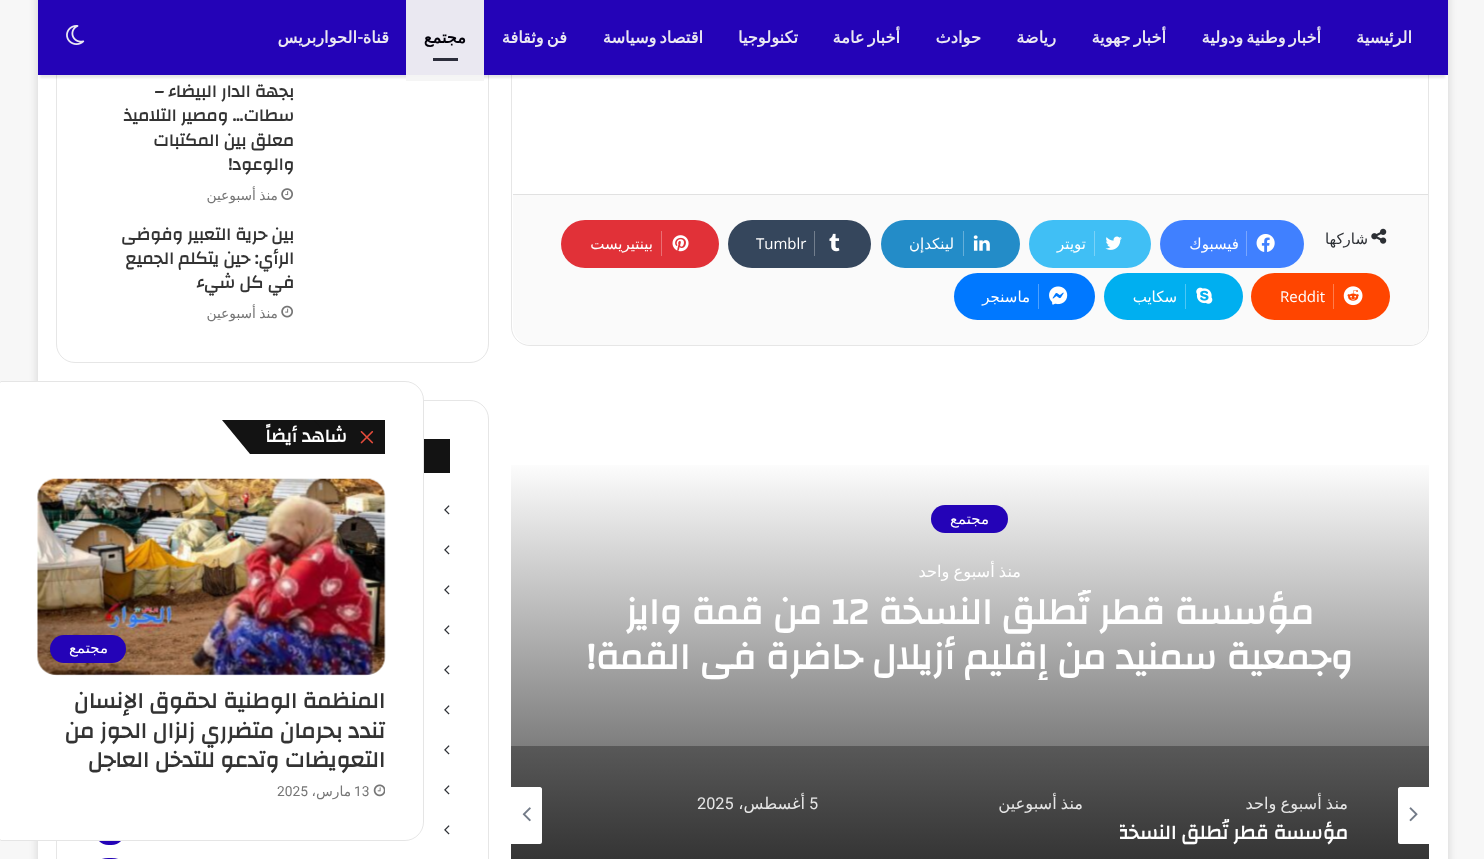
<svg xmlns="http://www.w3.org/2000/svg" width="1484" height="859">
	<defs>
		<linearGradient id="g1" gradientUnits="userSpaceOnUse" x1="969" y1="459" x2="969" y2="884"><stop offset="0" stop-color="#FFFFFF" /><stop offset="1" stop-color="#404040" /></linearGradient>
		<linearGradient id="g2" gradientUnits="userSpaceOnUse" x1="969" y1="459" x2="969" y2="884"><stop offset="0" stop-color="#B3B3B3" /><stop offset="1" stop-color="#2D2D2D" /></linearGradient>
		<clipPath id="clip1"><rect x="579" y="590" width="781" height="90" /></clipPath>
		<clipPath id="clip2"><rect x="1120" y="819" width="228" height="29" /></clipPath>
	</defs>
	<rect width="100%" height="100%" fill="#F7F7F7" />
	<rect x="38" y="-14" width="1410" height="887" fill="#ABABAB" fill-opacity="0.5" filter="blur(4.5px)" />
	<rect x="38" y="75" width="1410" height="784" fill="#FFFFFF" />
	<rect x="56.5" y="-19.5" width="432" height="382" rx="18.5" fill="none" stroke="#E6E6E6" />
	<rect x="511.5" y="-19.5" width="917" height="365" rx="18.5" fill="none" stroke="#E6E6E6" />
	<rect x="40" y="8" width="1405" height="70" fill="#000000" fill-opacity="0.1" filter="blur(1px)" />
	<rect x="38" y="0" width="1410" height="75" fill="#2403B7" />
	<g font-family="DejaVu Sans" font-size="16.25" font-weight="700" direction="rtl" fill="#EAE8F1">
		<text x="1412" y="43">الرئيسية</text>
		<text x="1321" y="43" word-spacing="-2">أخبار وطنية ودولية</text>
		<text x="1166" y="43" word-spacing="-2">أخبار جهوية</text>
		<text x="1056" y="43">رياضة</text>
		<text x="981" y="43">حوادث</text>
		<text x="900" y="43" word-spacing="-2">أخبار عامة</text>
		<text x="798" y="43">تكنولوجيا</text>
		<text x="703" y="43" word-spacing="-2">اقتصاد وسياسة</text>
		<text x="567" y="43" word-spacing="-2">فن وثقافة</text>
	</g>
	<rect x="406" y="75" width="78" height="6" fill="#F4F4F4" fill-opacity="0.95" />
	<rect x="406" y="0" width="78" height="75" fill="#EAE8F1" />
	<text x="466" y="43" font-family="DejaVu Sans" font-size="16.25" font-weight="700" direction="rtl" fill="#020009">مجتمع</text>
	<rect x="433" y="58" width="25" height="3" fill="#2C2D3B" />
	<text x="389" y="43" font-family="DejaVu Sans" font-size="16.25" font-weight="700" direction="rtl" fill="#EAE8F1">قناة</text>
	<text x="363" y="43" font-family="Questrial" font-size="16.25" font-weight="700" direction="rtl" fill="#EAE8F1">-</text>
	<text x="357" y="43" font-family="DejaVu Sans" font-size="16.25" font-weight="700" direction="rtl" fill="#EAE8F1">الحواربريس</text>
	<image x="66" y="25" width="19" height="20" href="assets/img1.png" />
	<g font-family="Changa" font-size="17.5" font-weight="700" direction="rtl" fill="#333333">
		<text x="294" y="97">بجهة الدار البيضاء –</text>
		<text x="294" y="121">سطات… ومصير التلاميذ</text>
		<text x="294" y="146">معلق بين المكتبات</text>
		<text x="294" y="170">والوعود!</text>
	</g>
	<image x="281" y="188" width="12" height="12" href="assets/img2.png" />
	<text x="278" y="200" word-spacing="-1" font-family="DejaVu Sans" font-size="13.75" direction="rtl" fill="#767676">منذ أسبوعين</text>
	<g font-family="Changa" font-size="17.5" font-weight="700" direction="rtl" fill="#333333">
		<text x="294" y="240">بين حرية التعبير وفوضى</text>
		<text x="294" y="264">الرأي: حين يتكلم الجميع</text>
		<text x="294" y="288">في كل شيء</text>
	</g>
	<image x="281" y="305" width="12" height="13" href="assets/img3.png" />
	<text x="278" y="318" word-spacing="-1" font-family="DejaVu Sans" font-size="13.75" direction="rtl" fill="#767676">منذ أسبوعين</text>
	<rect x="56.5" y="400.5" width="432" height="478" rx="18.5" fill="none" stroke="#E6E6E6" />
	<rect x="424" y="439" width="26" height="34" fill="#131313" />
	<image x="444" y="505" width="6" height="10" href="assets/img4.png" />
	<image x="444" y="545" width="6" height="10" href="assets/img4.png" />
	<image x="444" y="585" width="6" height="10" href="assets/img4.png" />
	<image x="444" y="625" width="6" height="10" href="assets/img4.png" />
	<image x="444" y="665" width="6" height="10" href="assets/img4.png" />
	<image x="444" y="705" width="6" height="10" href="assets/img4.png" />
	<image x="444" y="745" width="6" height="10" href="assets/img4.png" />
	<image x="444" y="785" width="6" height="10" href="assets/img4.png" />
	<image x="444" y="825" width="6" height="10" href="assets/img4.png" />
	<rect x="95" y="818" width="30" height="27" rx="13.5" fill="#2403B7" />
	<rect x="95" y="858" width="30" height="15" rx="13.5" fill="#2403B7" />
	<path d="M513 194H1428V326C1428 336.5 1419.5 345 1409 345H532C521.5 345 513 336.5 513 326Z" fill="#FAFAFA" />
	<rect x="513" y="194" width="915" height="1" fill="#E1E1E1" />
	<image x="1371" y="228" width="16" height="16" href="assets/img5.png" />
	<text x="1368" y="244" font-family="DejaVu Sans" font-size="15" direction="rtl" fill="#2C2F34">شاركها</text>
	<rect x="1160" y="220" width="144" height="48" rx="24" fill="#4080FF" />
	<image x="1256" y="234" width="19" height="18" href="assets/img6.png" />
	<rect x="1246" y="231" width="1" height="25" fill="#79A6FF" />
	<text x="1239" y="249" font-family="DejaVu Sans" font-size="15" direction="rtl" fill="#FFFFFF">فيسبوك</text>
	<rect x="1029" y="220" width="122" height="48" rx="24" fill="#40BFF5" />
	<image x="1105" y="236" width="17" height="14" href="assets/img7.png" />
	<rect x="1094" y="231" width="1" height="25" fill="#79D2F8" />
	<text x="1086" y="249" font-family="DejaVu Sans" font-size="15" direction="rtl" fill="#FFFFFF">تويتر</text>
	<rect x="881" y="220" width="139" height="48" rx="24" fill="#238CC8" />
	<image x="973" y="235" width="17" height="16" href="assets/img8.png" />
	<rect x="963" y="231" width="1" height="25" fill="#65AFD9" />
	<text x="954" y="249" font-family="DejaVu Sans" font-size="15" direction="rtl" fill="#FFFFFF">لينكدإن</text>
	<rect x="728" y="220" width="143" height="48" rx="24" fill="#35465C" />
	<image x="829" y="233" width="11" height="19" href="assets/img9.png" />
	<rect x="814" y="231" width="1" height="25" fill="#727E8D" />
	<text x="756" y="249" font-family="Open Sans" font-size="15" fill="#FFFFFF">Tumblr</text>
	<rect x="561" y="220" width="158" height="48" rx="24" fill="#E13138" />
	<image x="672" y="235" width="17" height="17" href="assets/img10.png" />
	<rect x="661" y="231" width="1" height="25" fill="#EA6F74" />
	<text x="653" y="249" font-family="DejaVu Sans" font-size="15" direction="rtl" fill="#FFFFFF">بينتيريست</text>
	<rect x="1251" y="273" width="139" height="47" rx="23.5" fill="#FF4500" />
	<image x="1343" y="286" width="20" height="20" href="assets/img11.png" />
	<rect x="1333" y="284" width="1" height="25" fill="#FF7D4D" />
	<text x="1280" y="302" font-family="Open Sans" font-size="15" fill="#FFFFFF">Reddit</text>
	<rect x="1104" y="273" width="139" height="47" rx="23.5" fill="#00AFF0" />
	<image x="1196" y="287" width="17" height="17" href="assets/img12.png" />
	<rect x="1185" y="284" width="1" height="25" fill="#4DC7F5" />
	<text x="1177" y="302" font-family="DejaVu Sans" font-size="15" direction="rtl" fill="#FFFFFF">سكايب</text>
	<rect x="954" y="273" width="141" height="47" rx="23.5" fill="#0078FF" />
	<image x="1049" y="286" width="19" height="19" href="assets/img13.png" />
	<rect x="1038" y="284" width="1" height="25" fill="#4DA1FF" />
	<text x="1030" y="302" font-family="DejaVu Sans" font-size="15" direction="rtl" fill="#FFFFFF">ماسنجر</text>
	<rect x="511" y="465" width="918" height="281" fill="url(#g1)" />
	<rect x="511" y="746" width="918" height="113" fill="url(#g2)" />
	<rect x="931" y="505" width="77" height="28" rx="14" fill="#2403B7" />
	<text x="989" y="524" font-family="DejaVu Sans" font-size="15" direction="rtl" fill="#FFFFFF">مجتمع</text>
	<text x="1021" y="577" word-spacing="-1" font-family="DejaVu Sans" font-size="16.25" direction="rtl" fill="#FFFFFF">منذ أسبوع واحد</text>
	<g clip-path="url(#clip1)">
		<text x="1314" y="624" font-family="Changa" font-size="37.5" font-weight="700" direction="rtl" fill="#FFFFFF">مؤسسة قطر تُطلق النسخة</text>
	</g>
	<text x="832" y="624" font-family="Changa" font-size="37.5" font-weight="700" fill="#FFFFFF">12</text>
	<text x="822" y="624" font-family="Changa" font-size="37.5" font-weight="700" direction="rtl" fill="#FFFFFF">من قمة وايز</text>
	<g clip-path="url(#clip1)">
		<text x="1353" y="669" font-family="Changa" font-size="37.5" font-weight="700" direction="rtl" fill="#FFFFFF">وجمعية سمنيد من إقليم أزيلال حاضرة في القمة!</text>
	</g>
	<path d="M1429 844H1400C1399 844 1398 843 1398 842V789C1398 788 1399 787 1400 787H1429Z" fill="#FFFFFF" />
	<image x="1409" y="807" width="9" height="15" href="assets/img14.png" />
	<path d="M540 844H511V787H540C541 787 542 788 542 789V842C542 843 541 844 540 844Z" fill="#FFFFFF" />
	<image x="522" y="807" width="9" height="15" href="assets/img15.png" />
	<text x="1348" y="809" word-spacing="-1" font-family="DejaVu Sans" font-size="16.25" direction="rtl" fill="#E6E6E6">منذ أسبوع واحد</text>
	<g clip-path="url(#clip2)">
		<text x="1348" y="839" font-family="Changa" font-size="20" font-weight="700" direction="rtl" fill="#FFFFFF">مؤسسة قطر تُطلق النسخة</text>
	</g>
	<text x="1083" y="809" word-spacing="-1" font-family="DejaVu Sans" font-size="16.25" direction="rtl" fill="#E6E6E6">منذ أسبوعين</text>
	<text x="809" y="809" font-family="Roboto" font-size="16.25" fill="#E6E6E6">5</text>
	<text x="805" y="809" font-family="DejaVu Sans" font-size="16.25" direction="rtl" fill="#E6E6E6">أغسطس،</text>
	<text x="697" y="809" font-family="Roboto" font-size="16.25" fill="#E6E6E6">2025</text>
	<path d="M1.5 381H405C415.5 381 424 389.5 424 400V822C424 832.5 415.5 841 405 841H1.5C0 841-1 840-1 838.5V383.5C-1 382 0 381 1.5 381Z" fill="#FFFFFF" />
	<path d="M1.5 381.5H405C415 381.5 423.5 390 423.5 400V822C423.5 832 415 840.5 405 840.5H1.5C.5 840.5-.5 839.5-.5 838.5V383.5C-.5 382.5 .5 381.5 1.5 381.5Z" fill="none" stroke="#000000" stroke-opacity="0.1" />
	<rect x="314" y="420" width="71" height="34" fill="#131313" />
	<path d="M222 420H314L342 454H250Z" fill="#131313" />
	<image x="360" y="431" width="14" height="13" href="assets/img16.png" />
	<text x="347" y="442" font-family="Changa" font-size="18.75" font-weight="700" direction="rtl" fill="#FFFFFF">شاهد أيضاً</text>
	<image x="37" y="478" width="349" height="198" href="assets/img17.png" />
	<rect x="50" y="635" width="76" height="28" rx="14" fill="#2403B7" />
	<text x="108" y="653" font-family="DejaVu Sans" font-size="15" direction="rtl" fill="#FFFFFF">مجتمع</text>
	<g font-family="Changa" font-size="22.5" font-weight="700" direction="rtl" fill="#333333">
		<text x="385" y="708">المنظمة الوطنية لحقوق الإنسان</text>
		<text x="385" y="738">تندد بحرمان متضرري زلزال الحوز من</text>
		<text x="385" y="767">التعويضات وتدعو للتدخل العاجل</text>
	</g>
	<image x="373" y="784" width="12" height="13" href="assets/img18.png" />
	<text x="354" y="796" font-family="Roboto" font-size="13.75" fill="#767676">13</text>
	<text x="351" y="796" font-family="DejaVu Sans" font-size="13.75" direction="rtl" fill="#767676">مارس،</text>
	<text x="277" y="796" font-family="Roboto" font-size="13.75" fill="#767676">2025</text>
</svg>
